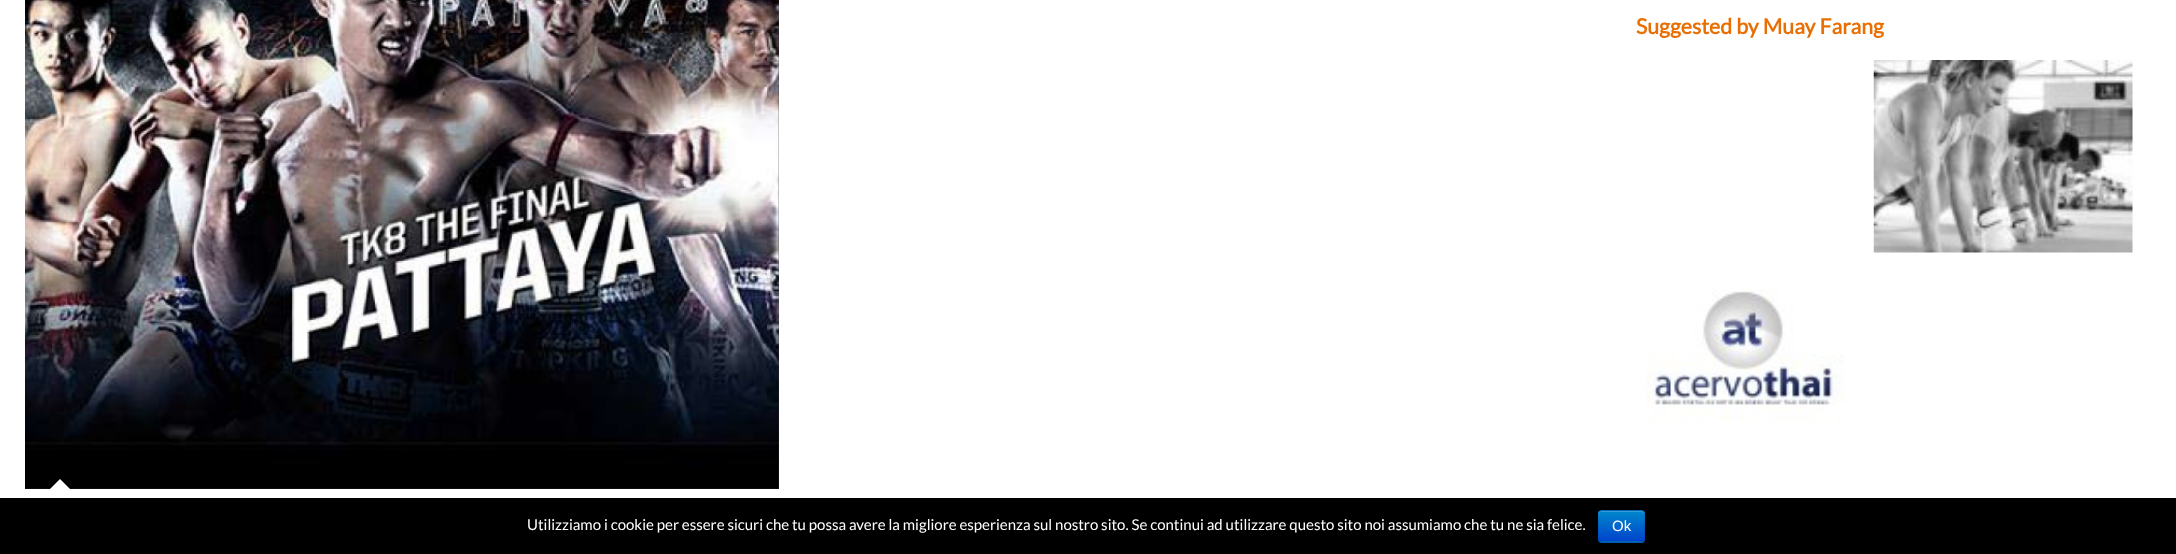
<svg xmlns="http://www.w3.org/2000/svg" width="2176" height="554">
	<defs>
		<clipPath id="clip1"><rect x="1598" y="510" width="47" height="33" rx="4" /></clipPath>
		<linearGradient id="g1" gradientUnits="userSpaceOnUse" x1="1621" y1="511" x2="1621" y2="541"><stop offset="0" stop-color="#0088CC" /><stop offset="1" stop-color="#0044CC" /></linearGradient>
	</defs>
	<rect width="100%" height="100%" fill="#FFFFFF" />
	<rect x="25" y="0" width="754" height="489" fill="#333333" />
	<image x="25" y="0" width="754" height="489" href="assets/img1.png" />
	<path d="M70 489H50L60 479Z" fill="#FFFFFF" />
	<text x="1636" y="34" font-family="Lato" font-size="21.25" font-weight="700" fill="#E96F02">Suggested by Muay Farang</text>
	<image x="1873" y="60" width="260" height="193" href="assets/img2.png" />
	<image x="1645" y="289" width="200" height="133" href="assets/img3.png" />
	<rect x="0" y="498" width="2176" height="56" fill="#000000" />
	<text x="527" y="530" font-family="Lato" font-size="15" fill="#FFFFFF">Utilizziamo i cookie per essere sicuri che tu possa avere la migliore esperienza sul nostro sito. Se continui ad utilizzare questo sito noi assumiamo che tu ne sia felice.</text>
	<rect x="1598" y="510" width="47" height="33" rx="4" fill="#006DCC" />
	<g clip-path="url(#clip1)">
		<rect x="1598" y="511" width="47" height="30" fill="url(#g1)" />
	</g>
	<path d="M1601 512H1641C1643 512 1644 514 1644 515C1644 509 1640 511 1635 511H1608C1603 511 1599 509 1599 515C1599 514 1600 512 1601 512Z" fill="#339FD6" />
	<path d="M1643.5 541L1641 542H1601L1599 541" fill="none" stroke="#000000" stroke-opacity="0.25" stroke-width="1.2" />
	<path d="M1599 541C1597 539 1598 529 1598 526C1598 511.5 1594.5 510.5 1608 510.5H1634.5C1648 510.5 1644.5 511.5 1644.5 526C1644.5 529 1645.5 539 1643.5 541" fill="none" stroke="#000000" stroke-opacity="0.1" stroke-width="1.2" />
	<text x="1612" y="531" font-family="Liberation Sans" font-size="15" fill="#FFFFFF">Ok</text>
</svg>
